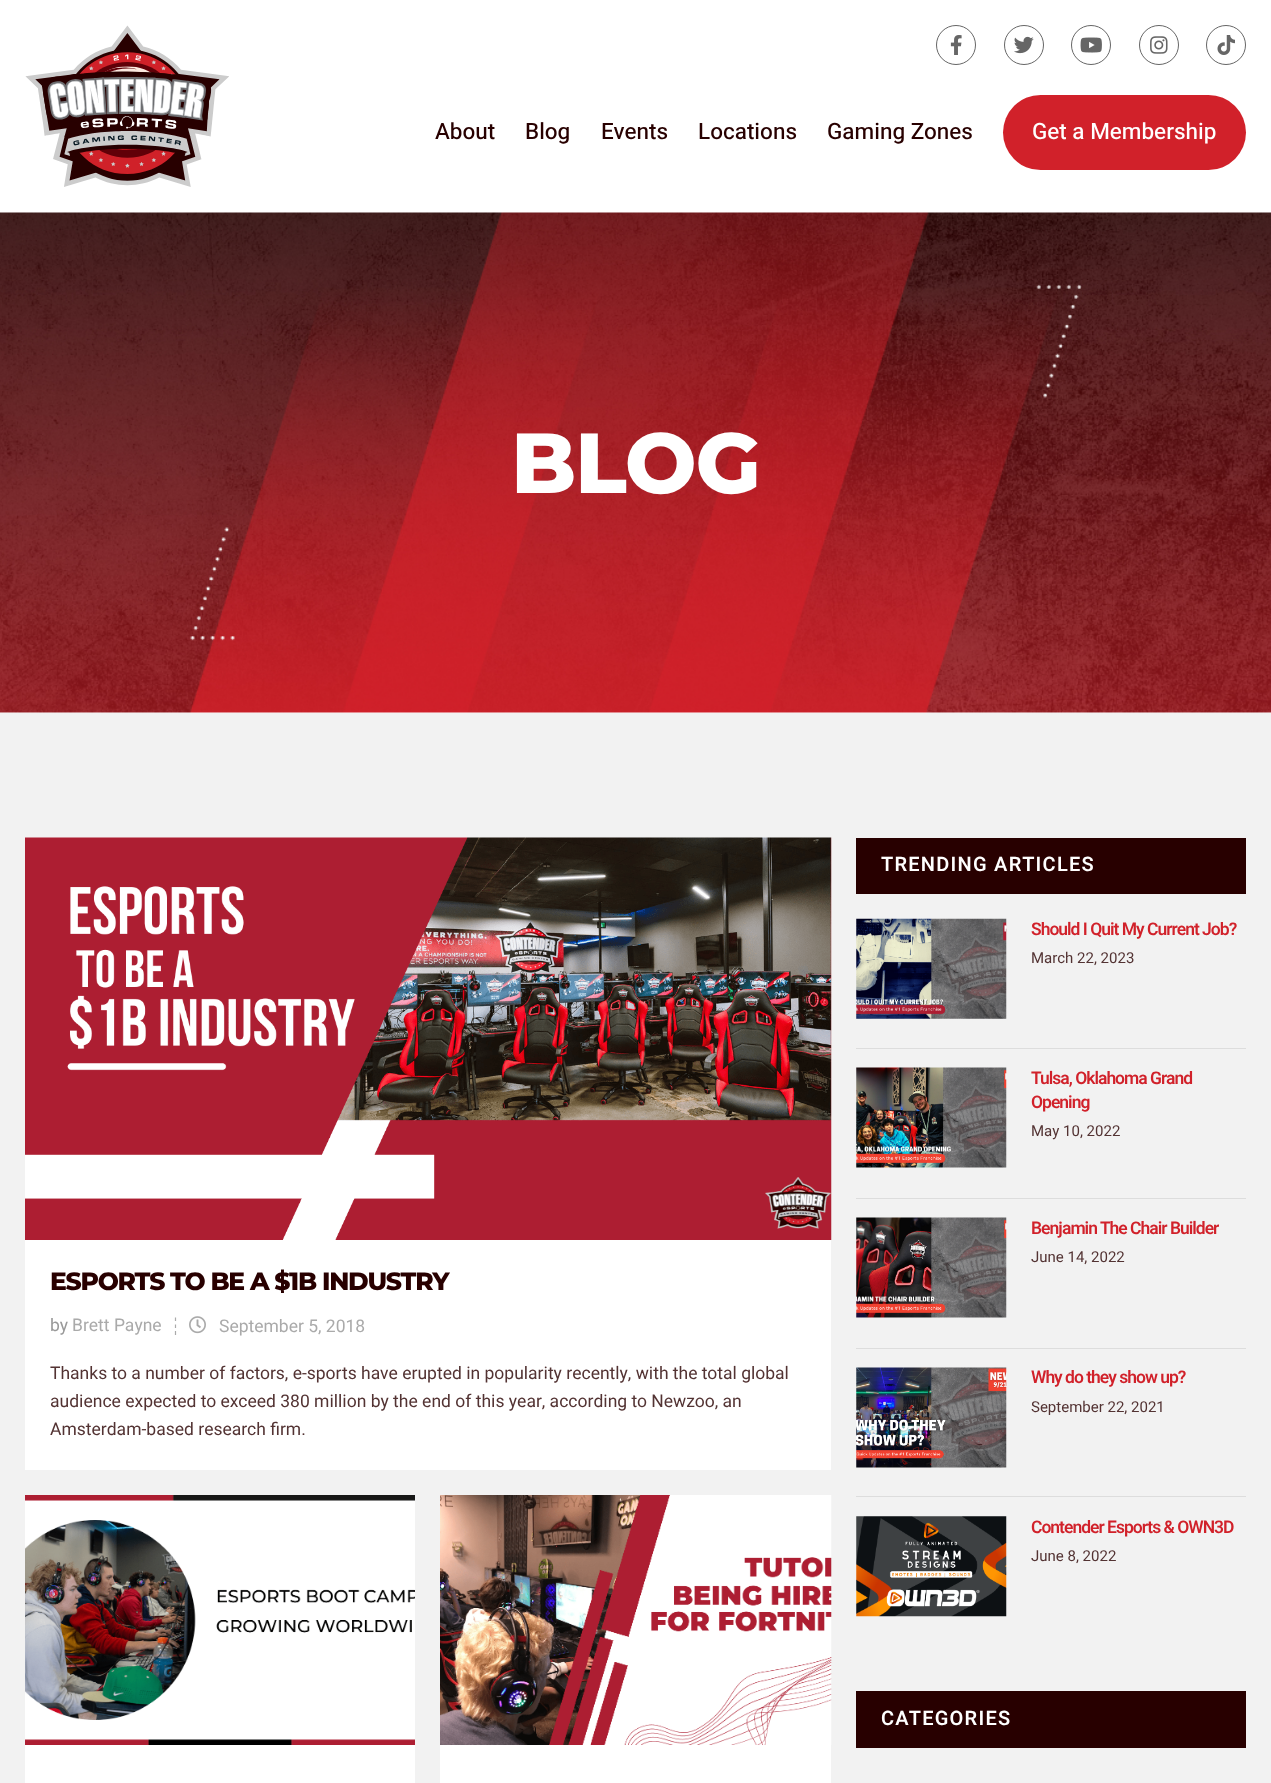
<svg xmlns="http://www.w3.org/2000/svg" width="1271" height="1783">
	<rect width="100%" height="100%" fill="#FFFFFF" />
	<image x="25" y="25" width="204" height="162" href="assets/img1.png" />
	<circle cx="956" cy="45" r="19.5" fill="none" stroke="#666666" />
	<image x="950" y="35" width="12" height="20" href="assets/img2.png" />
	<circle cx="1024" cy="45" r="19.5" fill="none" stroke="#666666" />
	<image x="1014" y="36" width="20" height="18" href="assets/img3.png" />
	<circle cx="1091" cy="45" r="19.5" fill="none" stroke="#666666" />
	<image x="1080" y="37" width="22" height="16" href="assets/img4.png" />
	<circle cx="1159" cy="45" r="19.5" fill="none" stroke="#666666" />
	<image x="1150" y="36" width="18" height="18" href="assets/img5.png" />
	<circle cx="1226" cy="45" r="19.5" fill="none" stroke="#666666" />
	<image x="1217" y="35" width="18" height="20" href="assets/img6.png" />
	<g font-family="Heebo" font-size="22.5" font-weight="500" fill="#280000">
		<text x="435" y="139">About</text>
		<text x="525" y="139">Blog</text>
		<text x="601" y="139">Events</text>
		<text x="698" y="139">Locations</text>
		<text x="827" y="139">Gaming Zones</text>
	</g>
	<rect x="1003" y="95" width="243" height="75" rx="37.5" fill="#D1212A" />
	<text x="1032" y="139" font-family="Heebo" font-size="22.5" font-weight="500" fill="#FFFFFF">Get a Membership</text>
	<image x="0" y="212" width="1271" height="501" href="assets/img7.png" />
	<text x="511" y="493" font-family="Montserrat" font-size="85" font-weight="800" letter-spacing="-1.25" fill="#FFFFFF">BLOG</text>
	<rect x="0" y="713" width="1271" height="1070" fill="#F2F2F2" />
	<rect x="25" y="1240" width="806" height="230" fill="#FFFFFF" />
	<image x="25" y="837" width="807" height="403" href="assets/img8.png" />
	<text x="50" y="1290" font-family="Montserrat" font-size="25" font-weight="800" letter-spacing="-1.25" fill="#280000">ESPORTS TO BE A $1B INDUSTRY</text>
	<path d="M175.5 1317.5V1321M175.5 1324.5V1328M175.5 1331V1335" fill="none" stroke="#AAAAAA" stroke-width="1.2" />
	<text x="50" y="1331" font-family="Heebo" font-size="17.5" fill="#999999">by</text>
	<text x="72" y="1331" font-family="Heebo" font-size="17.5" fill="#AAAAAA">Brett Payne</text>
	<image x="189" y="1316" width="17" height="18" href="assets/img9.png" />
	<text x="219" y="1332" font-family="Heebo" font-size="17.5" fill="#AAAAAA">September 5, 2018</text>
	<g font-family="Heebo" font-size="17.5" fill="#533333">
		<text x="50" y="1379">Thanks to a number of factors, e-sports have erupted in popularity recently, with the total global</text>
		<text x="50" y="1407">audience expected to exceed 380 million by the end of this year, according to Newzoo, an</text>
		<text x="50" y="1435">Amsterdam-based research firm.</text>
	</g>
	<rect x="25" y="1745" width="390" height="38" fill="#FFFFFF" />
	<image x="25" y="1495" width="390" height="250" href="assets/img10.png" />
	<rect x="440" y="1745" width="391" height="38" fill="#FFFFFF" />
	<image x="440" y="1495" width="392" height="250" href="assets/img11.png" />
	<rect x="856" y="838" width="390" height="56" fill="#280000" />
	<text x="881" y="871" font-family="Heebo" font-size="20" font-weight="600" letter-spacing="1.25" fill="#FFFFFF">TRENDING ARTICLES</text>
	<rect x="856" y="1048" width="390" height="1" fill="#DDDDDD" />
	<image x="856" y="918" width="151" height="101" href="assets/img12.png" />
	<text x="1031" y="935" font-family="Heebo" font-size="17.5" font-weight="600" letter-spacing="-1" fill="#D1212A">Should I Quit My Current Job?</text>
	<text x="1031" y="963" font-family="Heebo" font-size="15" fill="#533333">March 22, 2023</text>
	<rect x="856" y="1198" width="390" height="1" fill="#DDDDDD" />
	<image x="856" y="1067" width="151" height="101" href="assets/img13.png" />
	<g font-family="Heebo" font-size="17.5" font-weight="600" letter-spacing="-1" fill="#D1212A">
		<text x="1031" y="1084">Tulsa, Oklahoma Grand</text>
		<text x="1031" y="1108">Opening</text>
	</g>
	<text x="1031" y="1136" font-family="Heebo" font-size="15" fill="#533333">May 10, 2022</text>
	<rect x="856" y="1348" width="390" height="1" fill="#DDDDDD" />
	<image x="856" y="1217" width="151" height="101" href="assets/img14.png" />
	<text x="1031" y="1234" font-family="Heebo" font-size="17.5" font-weight="600" letter-spacing="-1" fill="#D1212A">Benjamin The Chair Builder</text>
	<text x="1031" y="1262" font-family="Heebo" font-size="15" fill="#533333">June 14, 2022</text>
	<rect x="856" y="1496" width="390" height="1" fill="#DDDDDD" />
	<image x="856" y="1367" width="151" height="101" href="assets/img15.png" />
	<text x="1031" y="1383" font-family="Heebo" font-size="17.5" font-weight="600" letter-spacing="-1" fill="#D1212A">Why do they show up?</text>
	<text x="1031" y="1412" font-family="Heebo" font-size="15" fill="#533333">September 22, 2021</text>
	<image x="856" y="1516" width="151" height="101" href="assets/img16.png" />
	<text x="1031" y="1533" font-family="Heebo" font-size="17.5" font-weight="600" letter-spacing="-1" fill="#D1212A">Contender Esports &amp; OWN3D</text>
	<text x="1031" y="1561" font-family="Heebo" font-size="15" fill="#533333">June 8, 2022</text>
	<rect x="856" y="1691" width="390" height="57" fill="#280000" />
	<text x="881" y="1725" font-family="Heebo" font-size="20" font-weight="600" letter-spacing="1.25" fill="#FFFFFF">CATEGORIES</text>
</svg>
